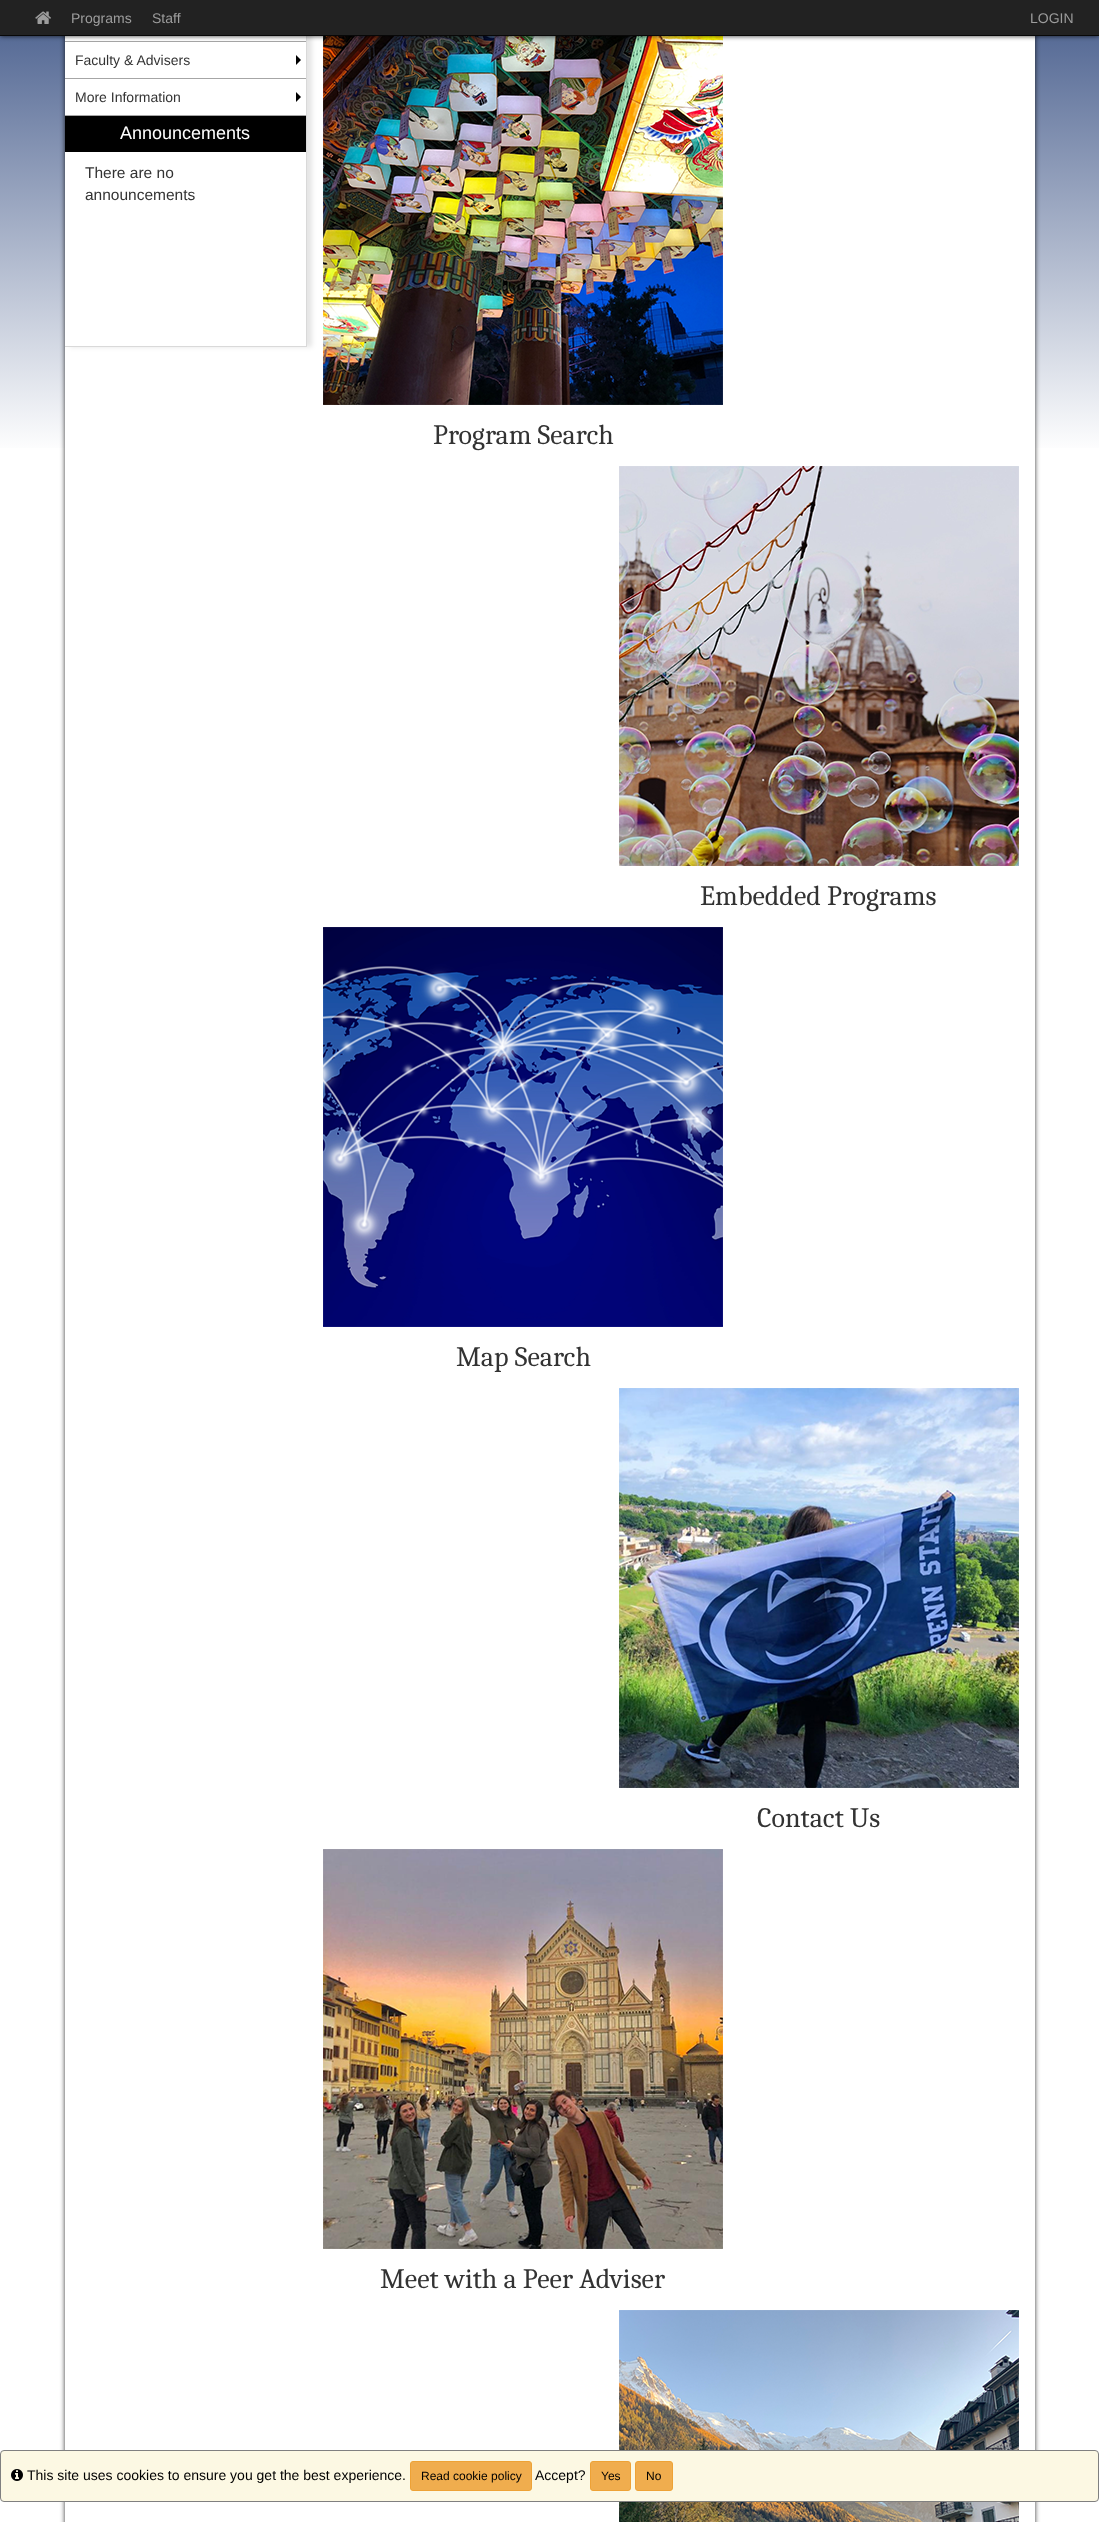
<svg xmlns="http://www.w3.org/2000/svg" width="1099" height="2522">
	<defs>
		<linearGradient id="g1" gradientUnits="userSpaceOnUse" x1="549" y1="-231" x2="550" y2="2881"><stop offset="0.02" stop-color="#052363" /><stop offset="0.22" stop-color="#FFFFFF" /></linearGradient>
		<clipPath id="clip1"><path d="M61 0H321V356H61ZM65 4H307V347H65Z" clip-rule="evenodd" /></clipPath>
	</defs>
	<rect width="100%" height="100%" fill="#FFFFFF" />
	<rect x="0" y="36" width="1099" height="412" fill="url(#g1)" />
	<rect x="65" y="4" width="970" height="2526" fill="#000000" fill-opacity="0.8" filter="blur(2.5px)" />
	<rect x="65" y="36" width="970" height="2486" fill="#FFFFFF" />
	<g clip-path="url(#clip1)">
		<rect x="70" y="4" width="242" height="343" fill="#000000" fill-opacity="0.1" filter="blur(2.5px)" />
	</g>
	<path d="M307 4V347L306 346V5Z" fill="#000000" fill-opacity="0.15" />
	<rect x="65" y="41" width="241" height="1" fill="#A6A6A6" />
	<image x="323" y="36" width="400" height="369" href="assets/img2.png" />
	<rect x="0" y="0" width="1099" height="36" fill="#000000" fill-opacity="0.8" filter="blur(2.5px)" />
	<rect x="0" y="0" width="1099" height="35" fill="#222222" />
	<rect x="0" y="35" width="1099" height="1" fill="#080808" />
	<image x="35" y="11" width="16" height="13" href="assets/img1.png" />
	<g font-family="Liberation Sans" font-size="14" fill="#9D9D9D">
		<text x="71" y="23">Programs</text>
		<text x="152" y="23">Staff</text>
		<text x="1030" y="23">LOGIN</text>
	</g>
	<path d="M307 347H65V346H306Z" fill="#000000" fill-opacity="0.15" />
	<rect x="65" y="78" width="241" height="1" fill="#A6A6A6" />
	<text x="75" y="65" font-family="Liberation Sans" font-size="14" fill="#333333">Faculty &amp; Advisers</text>
	<path d="M296 65V55L301 60Z" fill="#000000" />
	<rect x="65" y="115" width="241" height="1" fill="#A6A6A6" />
	<text x="75" y="102" font-family="Liberation Sans" font-size="14" fill="#333333">More Information</text>
	<path d="M296 102V92L301 97Z" fill="#000000" />
	<rect x="65" y="116" width="241" height="36" fill="#000000" />
	<text x="120" y="139" font-family="Liberation Sans" font-size="18" fill="#FFFFFF">Announcements</text>
	<g font-family="Liberation Sans" font-size="15.5" fill="#333333">
		<text x="85" y="178">There are no</text>
		<text x="85" y="200">announcements</text>
	</g>
	<text x="433" y="444" font-family="Caladea" font-size="28" fill="#333333">Program Search</text>
	<image x="619" y="466" width="400" height="400" href="assets/img3.png" />
	<text x="700" y="905" font-family="Caladea" font-size="28" fill="#333333">Embedded Programs</text>
	<image x="323" y="927" width="400" height="400" href="assets/img4.png" />
	<text x="456" y="1366" font-family="Caladea" font-size="28" fill="#333333">Map Search</text>
	<image x="619" y="1388" width="400" height="400" href="assets/img5.png" />
	<text x="757" y="1827" font-family="Caladea" font-size="28" fill="#333333">Contact Us</text>
	<image x="323" y="1849" width="400" height="400" href="assets/img6.png" />
	<text x="380" y="2288" font-family="Caladea" font-size="28" fill="#333333">Meet with a Peer Adviser</text>
	<image x="619" y="2310" width="400" height="212" href="assets/img7.png" />
	<rect x="0.5" y="2450.5" width="1098" height="51" rx="3.5" fill="#FCF8E3" stroke="#808080" />
	<image x="11" y="2469" width="12" height="12" href="assets/img8.png" />
	<text x="27" y="2480" font-family="Liberation Sans" font-size="14" fill="#000000">This site uses cookies to ensure you get the best experience.</text>
	<rect x="410.5" y="2461.5" width="121" height="29" rx="2.5" fill="#F0AD4E" stroke="#EEA236" />
	<text x="421" y="2480" font-family="Liberation Sans" font-size="12" fill="#000000">Read cookie policy</text>
	<text x="535" y="2480" font-family="Liberation Sans" font-size="14" fill="#000000">Accept?</text>
	<rect x="590.5" y="2461.5" width="40" height="29" rx="2.5" fill="#F0AD4E" stroke="#EEA236" />
	<text x="601" y="2480" font-family="Liberation Sans" font-size="12" fill="#000000">Yes</text>
	<rect x="635.5" y="2461.5" width="37" height="29" rx="2.5" fill="#F0AD4E" stroke="#EEA236" />
	<text x="646" y="2480" font-family="Liberation Sans" font-size="12" fill="#000000">No</text>
</svg>
